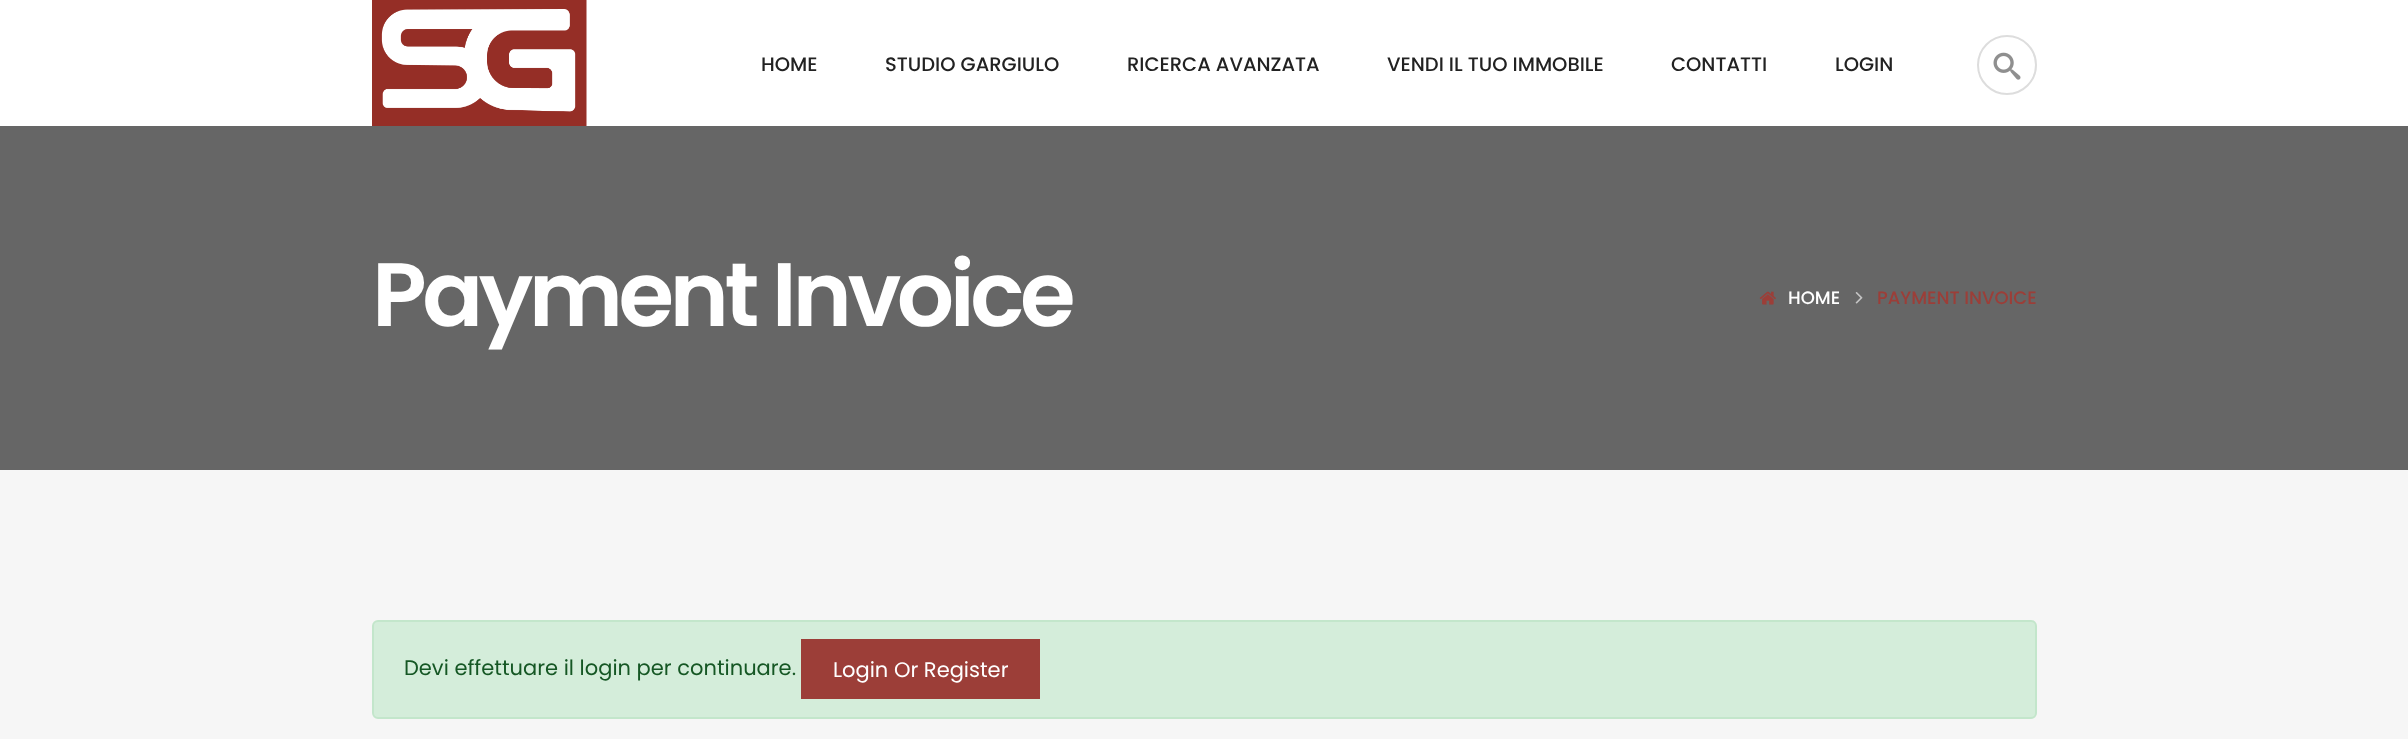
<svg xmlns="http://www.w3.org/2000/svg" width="2408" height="739">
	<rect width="100%" height="100%" fill="#FFFFFF" />
	<image x="372" y="0" width="215" height="126" href="assets/img1.png" />
	<g font-family="Poppins" font-size="19.5" font-weight="500" fill="#222222">
		<text x="761" y="71">HOME</text>
		<text x="885" y="71">STUDIO GARGIULO</text>
		<text x="1127" y="71">RICERCA AVANZATA</text>
		<text x="1387" y="71">VENDI IL TUO IMMOBILE</text>
		<text x="1671" y="71">CONTATTI</text>
		<text x="1835" y="71">LOGIN</text>
	</g>
	<circle cx="2007" cy="65" r="29" fill="none" stroke="#DDDDDD" stroke-width="2" />
	<image x="1993" y="52" width="28" height="28" href="assets/img2.png" />
	<rect x="0" y="126" width="2408" height="344" fill="#666666" />
	<text x="372" y="326" font-family="Poppins" font-size="90" font-weight="600" letter-spacing="-4.5" fill="#FFFFFF">Payment Invoice</text>
	<image x="1759" y="291" width="17" height="14" href="assets/img3.png" />
	<text x="1788" y="304" font-family="Poppins" font-size="18" font-weight="500" fill="#FFFFFF">HOME</text>
	<image x="1855" y="292" width="8" height="12" href="assets/img4.png" />
	<text x="1877" y="304" font-family="Poppins" font-size="18" font-weight="500" fill="#9C3E38">PAYMENT INVOICE</text>
	<rect x="0" y="470" width="2408" height="269" fill="#F6F6F6" />
	<rect x="373" y="621" width="1663" height="97" rx="5" fill="#D4EDDA" stroke="#C3E6CB" stroke-width="2" />
	<text x="404" y="675" font-family="Poppins" font-size="21" fill="#155724">Devi effettuare il login per continuare.</text>
	<rect x="801" y="639" width="239" height="60" fill="#9C3E38" />
	<text x="833" y="677" font-family="Poppins" font-size="21" fill="#FFFFFF">Login Or Register</text>
</svg>
